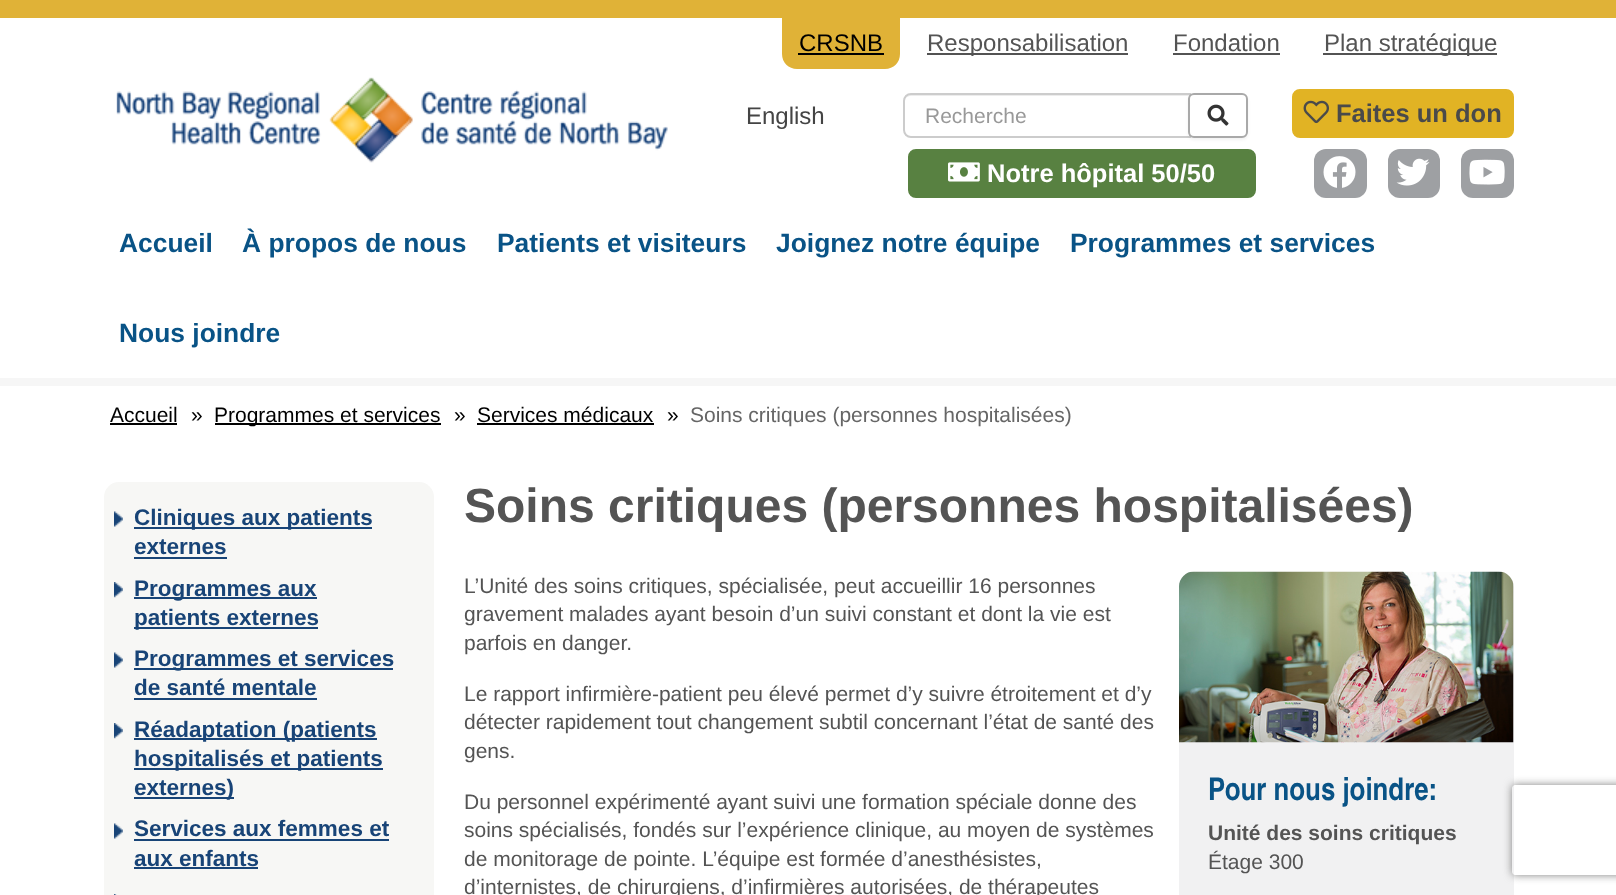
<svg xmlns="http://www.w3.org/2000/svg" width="1616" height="895">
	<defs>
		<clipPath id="clip1"><path d="M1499 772H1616V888H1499ZM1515 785H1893C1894.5 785 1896 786.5 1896 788V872C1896 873.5 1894.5 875 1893 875H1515C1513.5 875 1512 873.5 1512 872V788C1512 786.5 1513.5 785 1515 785Z" clip-rule="evenodd" /></clipPath>
	</defs>
	<rect width="100%" height="100%" fill="#FFFFFF" />
	<rect x="0" y="0" width="1616" height="18" fill="#E0B237" />
	<image x="116" y="77" width="552" height="86" href="assets/img1.png" />
	<path d="M782 18H900V54C900 62.5 893.5 69 885 69H797C788.5 69 782 62.5 782 54Z" fill="#E0B237" />
	<text x="799" y="51" font-family="Liberation Sans" font-size="24" fill="#000000">CRSNB</text>
	<rect x="798" y="53" width="86" height="2" fill="#000000" />
	<rect x="927" y="53" width="201" height="2" fill="#535353" />
	<g font-family="Liberation Sans" font-size="24" fill="#545454">
		<text x="927" y="51">Responsabilisation</text>
		<text x="1173" y="51">Fondation</text>
	</g>
	<rect x="1173" y="53" width="107" height="2" fill="#535353" />
	<rect x="1323" y="53" width="174" height="2" fill="#535353" />
	<text x="1324" y="51" font-family="Liberation Sans" font-size="24" fill="#545454">Plan stratégique</text>
	<text x="746" y="124" font-family="Liberation Sans" font-size="24" fill="#444444">English</text>
	<path d="M910 96H1190V95H911C909 95 907 96 906 98C907 97 909 96 910 96Z" fill="#ECECEC" />
	<path d="M911 94H1190V137H911C907 137 904 134 904 130V101C904 97 907 94 911 94Z" fill="none" stroke="#CCCCCC" stroke-width="2" />
	<text x="925" y="123" font-family="Liberation Sans" font-size="21" fill="#999999">Recherche</text>
	<rect x="1188" y="95" width="60" height="45" rx="6" fill="#000000" fill-opacity="0.05" filter="blur(1.5px)" />
	<rect x="1189" y="94" width="58" height="43" rx="5" fill="#FFFFFF" stroke="#A9A9A9" stroke-width="2" />
	<image x="1207" y="104" width="22" height="22" href="assets/img2.png" />
	<rect x="909.5" y="150.5" width="345" height="46" rx="6.5" fill="#588141" stroke="#588141" stroke-width="3" />
	<image x="948" y="162" width="32" height="20" href="assets/img3.png" />
	<text x="987" y="182" font-family="Liberation Sans" font-size="25.5" font-weight="700" fill="#FFFFFF">Notre hôpital 50/50</text>
	<rect x="1293.5" y="90.5" width="219" height="46" rx="6.5" fill="#E1B324" stroke="#E1B324" stroke-width="3" />
	<image x="1303" y="100" width="26" height="24" href="assets/img4.png" />
	<text x="1336" y="122" font-family="Liberation Sans" font-size="25.5" font-weight="700" fill="#4A4A4A">Faites un don</text>
	<rect x="1314" y="149" width="53" height="49" rx="12" fill="#9EA0A3" />
	<image x="1323" y="156" width="33" height="32" href="assets/img5.png" />
	<rect x="1388" y="149" width="52" height="49" rx="12" fill="#9EA0A3" />
	<image x="1396" y="158" width="34" height="28" href="assets/img6.png" />
	<rect x="1461" y="149" width="53" height="49" rx="12" fill="#9EA0A3" />
	<image x="1469" y="159" width="36" height="26" href="assets/img7.png" />
	<g font-family="Liberation Sans" font-size="26.4" font-weight="700" fill="#095386">
		<text x="119" y="252">Accueil</text>
		<text x="242" y="252">À propos de nous</text>
		<text x="497" y="252">Patients et visiteurs</text>
		<text x="776" y="252">Joignez notre équipe</text>
		<text x="1070" y="252">Programmes et services</text>
		<text x="119" y="342">Nous joindre</text>
	</g>
	<rect x="0" y="378" width="1616" height="8" fill="#F6F6F6" />
	<text x="110" y="422" font-family="Liberation Sans" font-size="21" fill="#000000">Accueil</text>
	<rect x="110" y="423" width="67" height="2" fill="#000000" />
	<text x="191" y="422" font-family="Liberation Sans" font-size="21" fill="#000000">»</text>
	<rect x="215" y="423" width="226" height="2" fill="#000000" />
	<g font-family="Liberation Sans" font-size="21" fill="#000000">
		<text x="214" y="422">Programmes et services</text>
		<text x="454" y="422">»</text>
		<text x="477" y="422">Services médicaux</text>
	</g>
	<rect x="477" y="423" width="177" height="2" fill="#000000" />
	<text x="667" y="422" font-family="Liberation Sans" font-size="21" fill="#000000">»</text>
	<text x="690" y="422" font-family="Liberation Sans" font-size="21" fill="#666666">Soins critiques (personnes hospitalisées)</text>
	<rect x="104" y="482" width="330" height="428" rx="15" fill="#F7F7F5" />
	<image x="114" y="511" width="9" height="16" href="assets/img8.png" />
	<rect x="134" y="527" width="238" height="2" fill="#184477" />
	<g font-family="Liberation Sans" font-size="22.5" font-weight="700" fill="#184477">
		<text x="134" y="525">Cliniques aux patients</text>
		<text x="134" y="554">externes</text>
	</g>
	<rect x="134" y="557" width="93" height="2" fill="#184477" />
	<image x="114" y="582" width="9" height="16" href="assets/img9.png" />
	<rect x="134" y="597" width="183" height="2" fill="#184477" />
	<text x="134" y="596" font-family="Liberation Sans" font-size="22.5" font-weight="700" fill="#184477">Programmes aux</text>
	<rect x="134" y="627" width="184" height="2" fill="#184477" />
	<text x="134" y="625" font-family="Liberation Sans" font-size="22.5" font-weight="700" fill="#184477">patients externes</text>
	<image x="114" y="652" width="9" height="16" href="assets/img8.png" />
	<rect x="134" y="668" width="259" height="2" fill="#184477" />
	<g font-family="Liberation Sans" font-size="22.5" font-weight="700" fill="#184477">
		<text x="134" y="666">Programmes et services</text>
		<text x="134" y="695">de santé mentale</text>
	</g>
	<rect x="134" y="698" width="183" height="2" fill="#184477" />
	<image x="114" y="723" width="9" height="16" href="assets/img9.png" />
	<rect x="134" y="738" width="243" height="2" fill="#184477" />
	<text x="134" y="737" font-family="Liberation Sans" font-size="22.5" font-weight="700" fill="#184477">Réadaptation (patients</text>
	<rect x="134" y="768" width="249" height="2" fill="#184477" />
	<text x="134" y="766" font-family="Liberation Sans" font-size="22.5" font-weight="700" fill="#184477">hospitalisés et patients</text>
	<rect x="134" y="797" width="100" height="2" fill="#184477" />
	<text x="134" y="795" font-family="Liberation Sans" font-size="22.5" font-weight="700" fill="#184477">externes)</text>
	<image x="114" y="823" width="9" height="16" href="assets/img8.png" />
	<text x="134" y="836" font-family="Liberation Sans" font-size="22.5" font-weight="700" fill="#184477">Services aux femmes et</text>
	<rect x="134" y="839" width="255" height="2" fill="#184477" />
	<text x="134" y="866" font-family="Liberation Sans" font-size="22.5" font-weight="700" fill="#184477">aux enfants</text>
	<rect x="134" y="867" width="124" height="2" fill="#184477" />
	<image x="114" y="894" width="3" height="1" href="assets/img10.png" />
	<text x="464" y="522" font-family="Liberation Sans" font-size="48" font-weight="700" fill="#545454">Soins critiques (personnes hospitalisées)</text>
	<g font-family="Liberation Sans" font-size="21" fill="#545454">
		<text x="464" y="593">L’Unité des soins critiques, spécialisée, peut accueillir 16 personnes</text>
		<text x="464" y="621">gravement malades ayant besoin d’un suivi constant et dont la vie est</text>
		<text x="464" y="650">parfois en danger.</text>
		<text x="464" y="701">Le rapport infirmière-patient peu élevé permet d’y suivre étroitement et d’y</text>
		<text x="464" y="729">détecter rapidement tout changement subtil concernant l’état de santé des</text>
		<text x="464" y="758">gens.</text>
		<text x="464" y="809">Du personnel expérimenté ayant suivi une formation spéciale donne des</text>
		<text x="464" y="837">soins spécialisés, fondés sur l’expérience clinique, au moyen de systèmes</text>
		<text x="464" y="866">de monitorage de pointe. L’équipe est formée d’anesthésistes,</text>
		<text x="464" y="894">d’internistes, de chirurgiens, d’infirmières autorisées, de thérapeutes</text>
	</g>
	<rect x="1179" y="572" width="335" height="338" rx="15" fill="#F1F1F2" />
	<image x="1179" y="571" width="335" height="172" href="assets/img11.png" />
	<text x="1208" y="800" font-family="TeX Gyre Heros Cn" font-size="31.5" font-weight="700" fill="#095386">Pour nous joindre:</text>
	<text x="1208" y="840" font-family="Liberation Sans" font-size="21" font-weight="700" fill="#545454">Unité des soins critiques</text>
	<text x="1208" y="869" font-family="Liberation Sans" font-size="21" fill="#545454">Étage 300</text>
	<g clip-path="url(#clip1)">
		<rect x="1512" y="785" width="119" height="90" rx="3" fill="#808080" filter="blur(4px)" />
	</g>
</svg>
